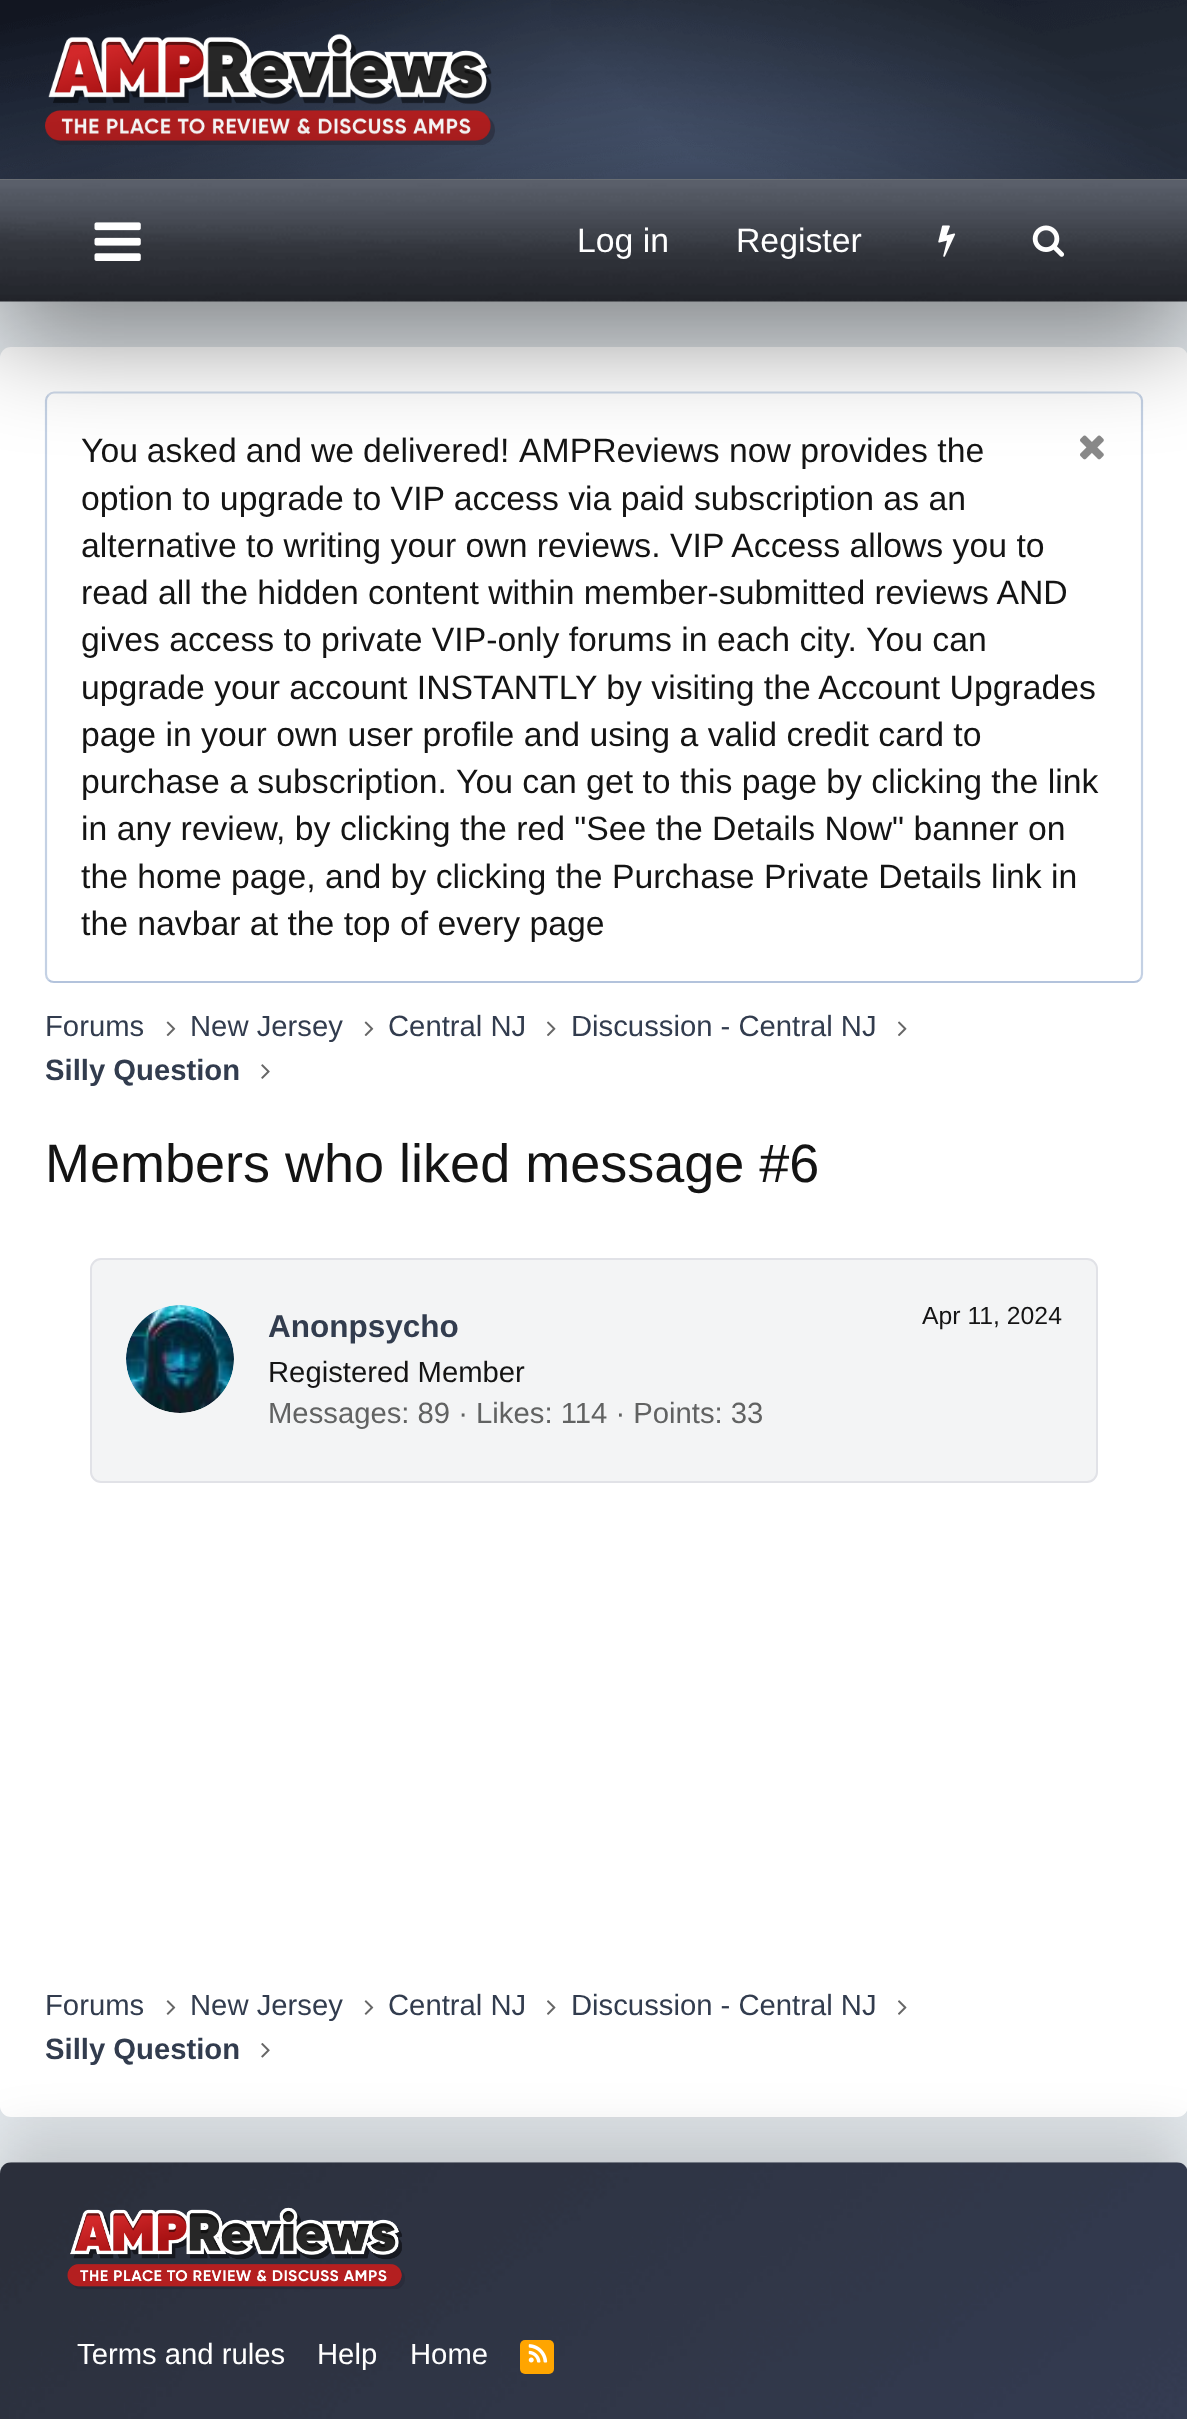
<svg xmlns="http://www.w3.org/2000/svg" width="1187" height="2419">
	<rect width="100%" height="100%" fill="#E7ECF0" />
	<image x="0" y="0" width="1187" height="180" href="assets/img1.png" />
	<image x="45" y="33" width="450" height="112" href="assets/img2.png" />
	<rect x="0" y="356" width="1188" height="1770" rx="11" fill="#000000" fill-opacity="0.07" filter="blur(39.5px)" />
	<rect x="0" y="347" width="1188" height="1770" rx="11" fill="#FFFFFF" />
	<path d="M48.5 395C50 393.5 52 392.5 54 392.5H1134C1136 392.5 1138 393.5 1139.5 395" fill="none" stroke="#CED9E9" stroke-width="2.2" />
	<path d="M1139.5 395C1141 396.5 1142 398.5 1142 400.5V974C1142 976.5 1141 978.5 1139.5 980" fill="none" stroke="#C4D1E4" stroke-width="2.2" />
	<path d="M1139.5 980C1138 981.5 1136 982 1134 982H54C52 982 50 981.5 48.5 980" fill="none" stroke="#B3C3DC" stroke-width="2.2" />
	<path d="M48.5 980C47 978.5 46 976.5 46 974V400.5C46 398.5 47 396.5 48.5 395" fill="none" stroke="#C4D1E4" stroke-width="2.2" />
	<image x="1080" y="435" width="24" height="25" href="assets/img7.png" />
	<rect x="-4" y="198" width="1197" height="131" fill="#000000" fill-opacity="0.5" filter="blur(56px)" />
	<image x="0" y="180" width="1187" height="122" href="assets/img3.png" />
	<image x="94" y="222" width="47" height="39" href="assets/img4.png" />
	<g font-family="Liberation Sans" font-size="33.75" fill="#FFFFFF">
		<text x="577" y="252">Log in</text>
		<text x="736" y="252">Register</text>
	</g>
	<image x="938" y="225" width="18" height="32" href="assets/img5.png" />
	<image x="1032" y="225" width="33" height="32" href="assets/img6.png" />
	<g font-family="Liberation Sans" font-size="33.75" fill="#141414">
		<text x="81" y="462" word-spacing="-0.5">You asked and we delivered!</text>
		<text x="519" y="462">AMPReviews now provides the</text>
		<text x="81" y="510">option to upgrade to VIP access via paid subscription as an</text>
		<text x="81" y="557">alternative to writing your own reviews. VIP Access allows you to</text>
		<text x="81" y="604">read all the hidden content within member-submitted reviews AND</text>
		<text x="81" y="651">gives access to private VIP-only forums in each city.</text>
		<text x="866" y="651">You can</text>
		<text x="81" y="699">upgrade your account INSTANTLY by visiting the Account Upgrades</text>
		<text x="81" y="746">page in your own user profile and using a valid credit card to</text>
		<text x="81" y="793">purchase a subscription.</text>
		<text x="456" y="793">You can get to this page by clicking the link</text>
		<text x="81" y="840">in any review, by clicking the red "See the Details Now" banner on</text>
		<text x="81" y="888">the home page, and by clicking the Purchase Private Details link in</text>
		<text x="81" y="935">the navbar at the top of every page</text>
	</g>
	<text x="45" y="1036" font-family="Liberation Sans" font-size="29.25" fill="#323C4E">Forums</text>
	<image x="166" y="1021" width="10" height="15" href="assets/img8.png" />
	<text x="190" y="1036" font-family="Liberation Sans" font-size="29.25" fill="#323C4E">New Jersey</text>
	<image x="364" y="1021" width="10" height="15" href="assets/img8.png" />
	<text x="388" y="1036" font-family="Liberation Sans" font-size="29.25" fill="#323C4E">Central NJ</text>
	<image x="547" y="1021" width="9" height="15" href="assets/img9.png" />
	<text x="571" y="1036" font-family="Liberation Sans" font-size="29.25" fill="#323C4E">Discussion - Central NJ</text>
	<image x="898" y="1021" width="9" height="15" href="assets/img9.png" />
	<text x="45" y="1080" font-family="Liberation Sans" font-size="29.25" font-weight="700" fill="#323C4E">Silly Question</text>
	<image x="261" y="1064" width="9" height="15" href="assets/img10.png" />
	<text x="45" y="1182" font-family="Liberation Sans" font-size="54" fill="#141414">Members who liked message #6</text>
	<rect x="91" y="1259" width="1006" height="223" rx="10" fill="#F3F4F5" stroke="#E1E2E7" stroke-width="2" />
	<image x="126" y="1305" width="108" height="108" href="assets/img11.png" />
	<text x="268" y="1337" font-family="Liberation Sans" font-size="31.5" font-weight="700" fill="#323C4E">Anonpsycho</text>
	<text x="922" y="1324" font-family="Liberation Sans" font-size="24.75" fill="#141414">Apr 11, 2024</text>
	<text x="268" y="1382" font-family="Liberation Sans" font-size="29.25" fill="#141414">Registered Member</text>
	<text x="268" y="1423" font-family="Liberation Sans" font-size="29.25" fill="#616262">Messages: 89 · Likes: 114 · Points: 33</text>
	<text x="45" y="2015" font-family="Liberation Sans" font-size="29.25" fill="#323C4E">Forums</text>
	<image x="166" y="2000" width="10" height="15" href="assets/img12.png" />
	<text x="190" y="2015" font-family="Liberation Sans" font-size="29.25" fill="#323C4E">New Jersey</text>
	<image x="364" y="2000" width="10" height="15" href="assets/img12.png" />
	<text x="388" y="2015" font-family="Liberation Sans" font-size="29.25" fill="#323C4E">Central NJ</text>
	<image x="547" y="2000" width="9" height="15" href="assets/img13.png" />
	<text x="571" y="2015" font-family="Liberation Sans" font-size="29.25" fill="#323C4E">Discussion - Central NJ</text>
	<image x="898" y="2000" width="9" height="15" href="assets/img13.png" />
	<image x="261" y="2043" width="9" height="15" href="assets/img14.png" />
	<rect x="0" y="2140" width="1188" height="259" rx="11" fill="#000000" fill-opacity="0.15" filter="blur(28px)" />
	<text x="45" y="2059" font-family="Liberation Sans" font-size="29.25" font-weight="700" fill="#323C4E">Silly Question</text>
	<image x="0" y="2162" width="1187" height="257" href="assets/img15.png" />
	<image x="67" y="2207" width="338" height="82" href="assets/img16.png" />
	<g font-family="Liberation Sans" font-size="29.25" fill="#FFFFFF">
		<text x="77" y="2364">Terms and rules</text>
		<text x="317" y="2364">Help</text>
		<text x="410" y="2364">Home</text>
	</g>
	<rect x="520" y="2340" width="34" height="34" rx="5" fill="#FFA500" />
	<image x="528" y="2344" width="20" height="19" href="assets/img17.png" />
</svg>
